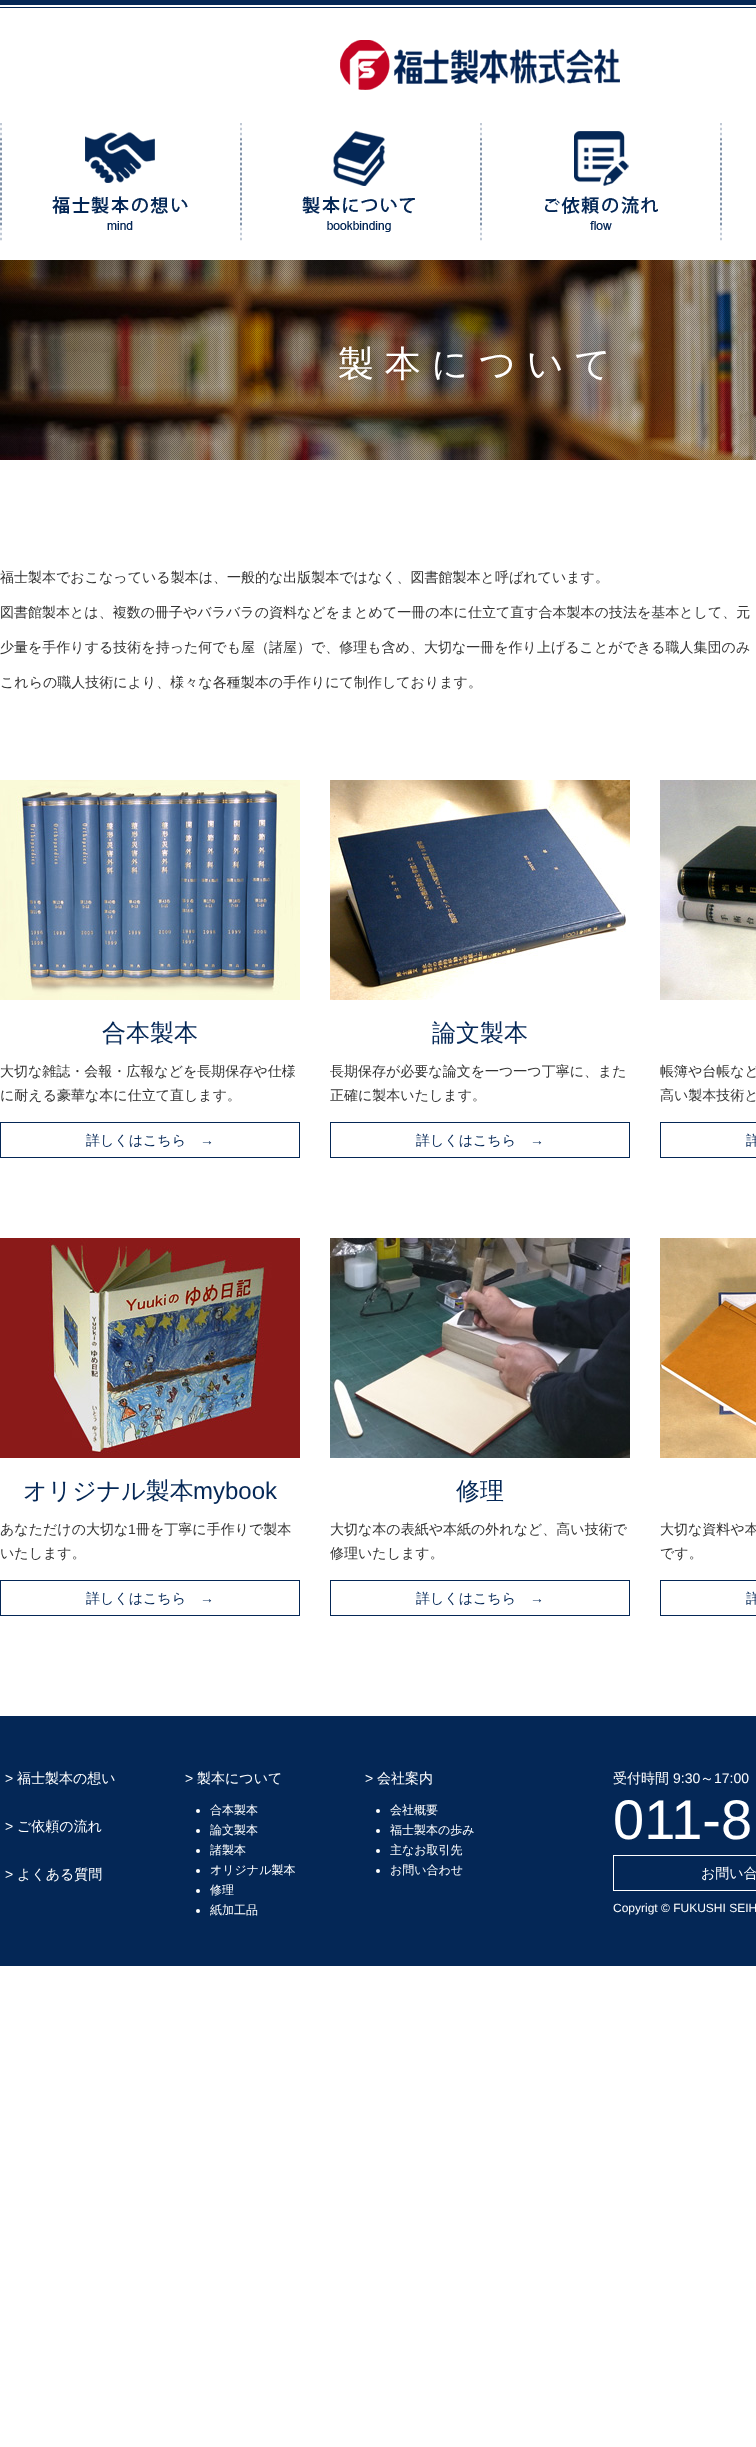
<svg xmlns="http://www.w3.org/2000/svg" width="756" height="2447">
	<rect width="100%" height="100%" fill="#FFFFFF" />
	<image x="0" y="0" width="756" height="8" href="assets/img1.png" />
	<image x="340" y="40" width="280" height="50" href="assets/img2.png" />
	<image x="0" y="123" width="722" height="118" href="assets/img3.png" />
	<image x="0" y="260" width="756" height="200" href="assets/img4.png" />
	<image x="0" y="260" width="756" height="200" href="assets/img5.png" />
	<text x="338" y="376" font-family="WenQuanYi Zen Hei" font-size="36" font-weight="500" letter-spacing="10.75" fill="#FFFFFF">製本について</text>
	<g font-family="WenQuanYi Zen Hei" font-size="14" font-weight="500" fill="#333333">
		<text x="0" y="582">福士製本でおこなっている製本は、一般的な出版製本ではなく、図書館製本と呼ばれています。</text>
		<text x="0" y="617">図書館製本とは、複数の冊子やバラバラの資料などをまとめて一冊の本に仕立て直す合本製本の技法を基本として、元</text>
		<text x="0" y="652">少量を手作りする技術を持った何でも屋（諸屋）で、修理も含め、大切な一冊を作り上げることができる職人集団のみ</text>
		<text x="0" y="687">これらの職人技術により、様々な各種製本の手作りにて制作しております。</text>
	</g>
	<image x="0" y="780" width="300" height="220" href="assets/img6.png" />
	<text x="102" y="1041" font-family="WenQuanYi Zen Hei" font-size="24" font-weight="500" fill="#042756">合本製本</text>
	<g font-family="WenQuanYi Zen Hei" font-size="14" font-weight="500" fill="#333333">
		<text x="0" y="1076">大切な雑誌・会報・広報などを長期保存や仕様</text>
		<text x="0" y="1100">に耐える豪華な本に仕立て直します。</text>
	</g>
	<rect x="0.5" y="1122.5" width="299" height="35" fill="none" stroke="#042756" />
	<text x="86" y="1145" font-family="WenQuanYi Zen Hei" font-size="14" font-weight="500" fill="#042756">詳しくはこちら</text>
	<text x="200" y="1145" font-family="Liberation Sans" font-size="14" fill="#042756">→</text>
	<image x="330" y="780" width="300" height="220" href="assets/img7.png" />
	<text x="432" y="1041" font-family="WenQuanYi Zen Hei" font-size="24" font-weight="500" fill="#042756">論文製本</text>
	<g font-family="WenQuanYi Zen Hei" font-size="14" font-weight="500" fill="#333333">
		<text x="330" y="1076">長期保存が必要な論文を一つ一つ丁寧に、また</text>
		<text x="330" y="1100">正確に製本いたします。</text>
	</g>
	<rect x="330.5" y="1122.5" width="299" height="35" fill="none" stroke="#042756" />
	<text x="416" y="1145" font-family="WenQuanYi Zen Hei" font-size="14" font-weight="500" fill="#042756">詳しくはこちら</text>
	<text x="530" y="1145" font-family="Liberation Sans" font-size="14" fill="#042756">→</text>
	<image x="660" y="780" width="96" height="220" href="assets/img8.png" />
	<g font-family="WenQuanYi Zen Hei" font-size="14" font-weight="500" fill="#333333">
		<text x="660" y="1076">帳簿や台帳など</text>
		<text x="660" y="1100">高い製本技術と</text>
	</g>
	<rect x="660.5" y="1122.5" width="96" height="35" fill="none" stroke="#042756" />
	<text x="746" y="1145" font-family="WenQuanYi Zen Hei" font-size="14" font-weight="500" fill="#042756">詳</text>
	<image x="0" y="1238" width="300" height="220" href="assets/img9.png" />
	<text x="23" y="1499" font-family="WenQuanYi Zen Hei" font-size="24" font-weight="500" fill="#042756">オリジナル製本</text>
	<text x="193" y="1499" font-family="Liberation Sans" font-size="24" fill="#042756">mybook</text>
	<text x="0" y="1534" font-family="WenQuanYi Zen Hei" font-size="14" font-weight="500" fill="#333333">あなただけの大切な</text>
	<text x="128" y="1534" font-family="Liberation Sans" font-size="14" fill="#333333">1</text>
	<g font-family="WenQuanYi Zen Hei" font-size="14" font-weight="500" fill="#333333">
		<text x="136" y="1534">冊を丁寧に手作りで製本</text>
		<text x="0" y="1558">いたします。</text>
	</g>
	<rect x="0.5" y="1580.5" width="299" height="35" fill="none" stroke="#042756" />
	<text x="86" y="1603" font-family="WenQuanYi Zen Hei" font-size="14" font-weight="500" fill="#042756">詳しくはこちら</text>
	<text x="200" y="1603" font-family="Liberation Sans" font-size="14" fill="#042756">→</text>
	<image x="330" y="1238" width="300" height="220" href="assets/img10.png" />
	<text x="456" y="1499" font-family="WenQuanYi Zen Hei" font-size="24" font-weight="500" fill="#042756">修理</text>
	<g font-family="WenQuanYi Zen Hei" font-size="14" font-weight="500" fill="#333333">
		<text x="330" y="1534">大切な本の表紙や本紙の外れなど、高い技術で</text>
		<text x="330" y="1558">修理いたします。</text>
	</g>
	<rect x="330.5" y="1580.5" width="299" height="35" fill="none" stroke="#042756" />
	<text x="416" y="1603" font-family="WenQuanYi Zen Hei" font-size="14" font-weight="500" fill="#042756">詳しくはこちら</text>
	<text x="530" y="1603" font-family="Liberation Sans" font-size="14" fill="#042756">→</text>
	<image x="660" y="1238" width="96" height="220" href="assets/img11.png" />
	<g font-family="WenQuanYi Zen Hei" font-size="14" font-weight="500" fill="#333333">
		<text x="660" y="1534">大切な資料や本</text>
		<text x="660" y="1558">です。</text>
	</g>
	<rect x="660.5" y="1580.5" width="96" height="35" fill="none" stroke="#042756" />
	<text x="746" y="1603" font-family="WenQuanYi Zen Hei" font-size="14" font-weight="500" fill="#042756">詳</text>
	<rect x="0" y="1716" width="756" height="250" fill="#042756" />
	<text x="5" y="1783" font-family="Liberation Sans" font-size="14" fill="#FFFFFF">&gt;</text>
	<text x="17" y="1783" font-family="WenQuanYi Zen Hei" font-size="14" font-weight="500" fill="#FFFFFF">福士製本の想い</text>
	<text x="5" y="1831" font-family="Liberation Sans" font-size="14" fill="#FFFFFF">&gt;</text>
	<text x="17" y="1831" font-family="WenQuanYi Zen Hei" font-size="14" font-weight="500" fill="#FFFFFF">ご依頼の流れ</text>
	<text x="5" y="1879" font-family="Liberation Sans" font-size="14" fill="#FFFFFF">&gt;</text>
	<text x="17" y="1879" font-family="WenQuanYi Zen Hei" font-size="14" font-weight="500" fill="#FFFFFF">よくある質問</text>
	<text x="185" y="1783" font-family="Liberation Sans" font-size="14" fill="#FFFFFF">&gt;</text>
	<text x="197" y="1783" font-family="WenQuanYi Zen Hei" font-size="14" font-weight="500" fill="#FFFFFF">製本について</text>
	<circle cx="198" cy="1811" r="2" fill="#FFFFFF" />
	<text x="210" y="1814" font-family="WenQuanYi Zen Hei" font-size="12" font-weight="500" fill="#FFFFFF">合本製本</text>
	<circle cx="198" cy="1831" r="2" fill="#FFFFFF" />
	<text x="210" y="1834" font-family="WenQuanYi Zen Hei" font-size="12" font-weight="500" fill="#FFFFFF">論文製本</text>
	<circle cx="198" cy="1851" r="2" fill="#FFFFFF" />
	<text x="210" y="1854" font-family="WenQuanYi Zen Hei" font-size="12" font-weight="500" fill="#FFFFFF">諸製本</text>
	<circle cx="198" cy="1871" r="2" fill="#FFFFFF" />
	<text x="210" y="1874" font-family="WenQuanYi Zen Hei" font-size="12" font-weight="500" fill="#FFFFFF">オリジナル製本</text>
	<circle cx="198" cy="1891" r="2" fill="#FFFFFF" />
	<text x="210" y="1894" font-family="WenQuanYi Zen Hei" font-size="12" font-weight="500" fill="#FFFFFF">修理</text>
	<circle cx="198" cy="1911" r="2" fill="#FFFFFF" />
	<text x="210" y="1914" font-family="WenQuanYi Zen Hei" font-size="12" font-weight="500" fill="#FFFFFF">紙加工品</text>
	<text x="365" y="1783" font-family="Liberation Sans" font-size="14" fill="#FFFFFF">&gt;</text>
	<text x="377" y="1783" font-family="WenQuanYi Zen Hei" font-size="14" font-weight="500" fill="#FFFFFF">会社案内</text>
	<circle cx="378" cy="1811" r="2" fill="#FFFFFF" />
	<text x="390" y="1814" font-family="WenQuanYi Zen Hei" font-size="12" font-weight="500" fill="#FFFFFF">会社概要</text>
	<circle cx="378" cy="1831" r="2" fill="#FFFFFF" />
	<text x="390" y="1834" font-family="WenQuanYi Zen Hei" font-size="12" font-weight="500" fill="#FFFFFF">福士製本の歩み</text>
	<circle cx="378" cy="1851" r="2" fill="#FFFFFF" />
	<text x="390" y="1854" font-family="WenQuanYi Zen Hei" font-size="12" font-weight="500" fill="#FFFFFF">主なお取引先</text>
	<circle cx="378" cy="1871" r="2" fill="#FFFFFF" />
	<text x="390" y="1874" font-family="WenQuanYi Zen Hei" font-size="12" font-weight="500" fill="#FFFFFF">お問い合わせ</text>
	<text x="613" y="1783" font-family="WenQuanYi Zen Hei" font-size="14" font-weight="500" fill="#FFFFFF">受付時間</text>
	<text x="673" y="1783" font-family="Liberation Sans" font-size="14" fill="#FFFFFF">9:30</text>
	<text x="700" y="1783" font-family="WenQuanYi Zen Hei" font-size="14" font-weight="500" fill="#FFFFFF">～</text>
	<text x="714" y="1783" font-family="Liberation Sans" font-size="14" fill="#FFFFFF">17:00</text>
	<text x="613" y="1839" font-family="Liberation Sans" font-size="56" fill="#FFFFFF">011-8</text>
	<rect x="613.5" y="1855.5" width="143" height="35" fill="none" stroke="#FFFFFF" />
	<text x="701" y="1878" font-family="WenQuanYi Zen Hei" font-size="14" font-weight="500" fill="#FFFFFF">お問い合</text>
	<text x="613" y="1912" font-family="Liberation Sans" font-size="12" fill="#FFFFFF">Copyrigt © FUKUSHI SEIH</text>
</svg>
